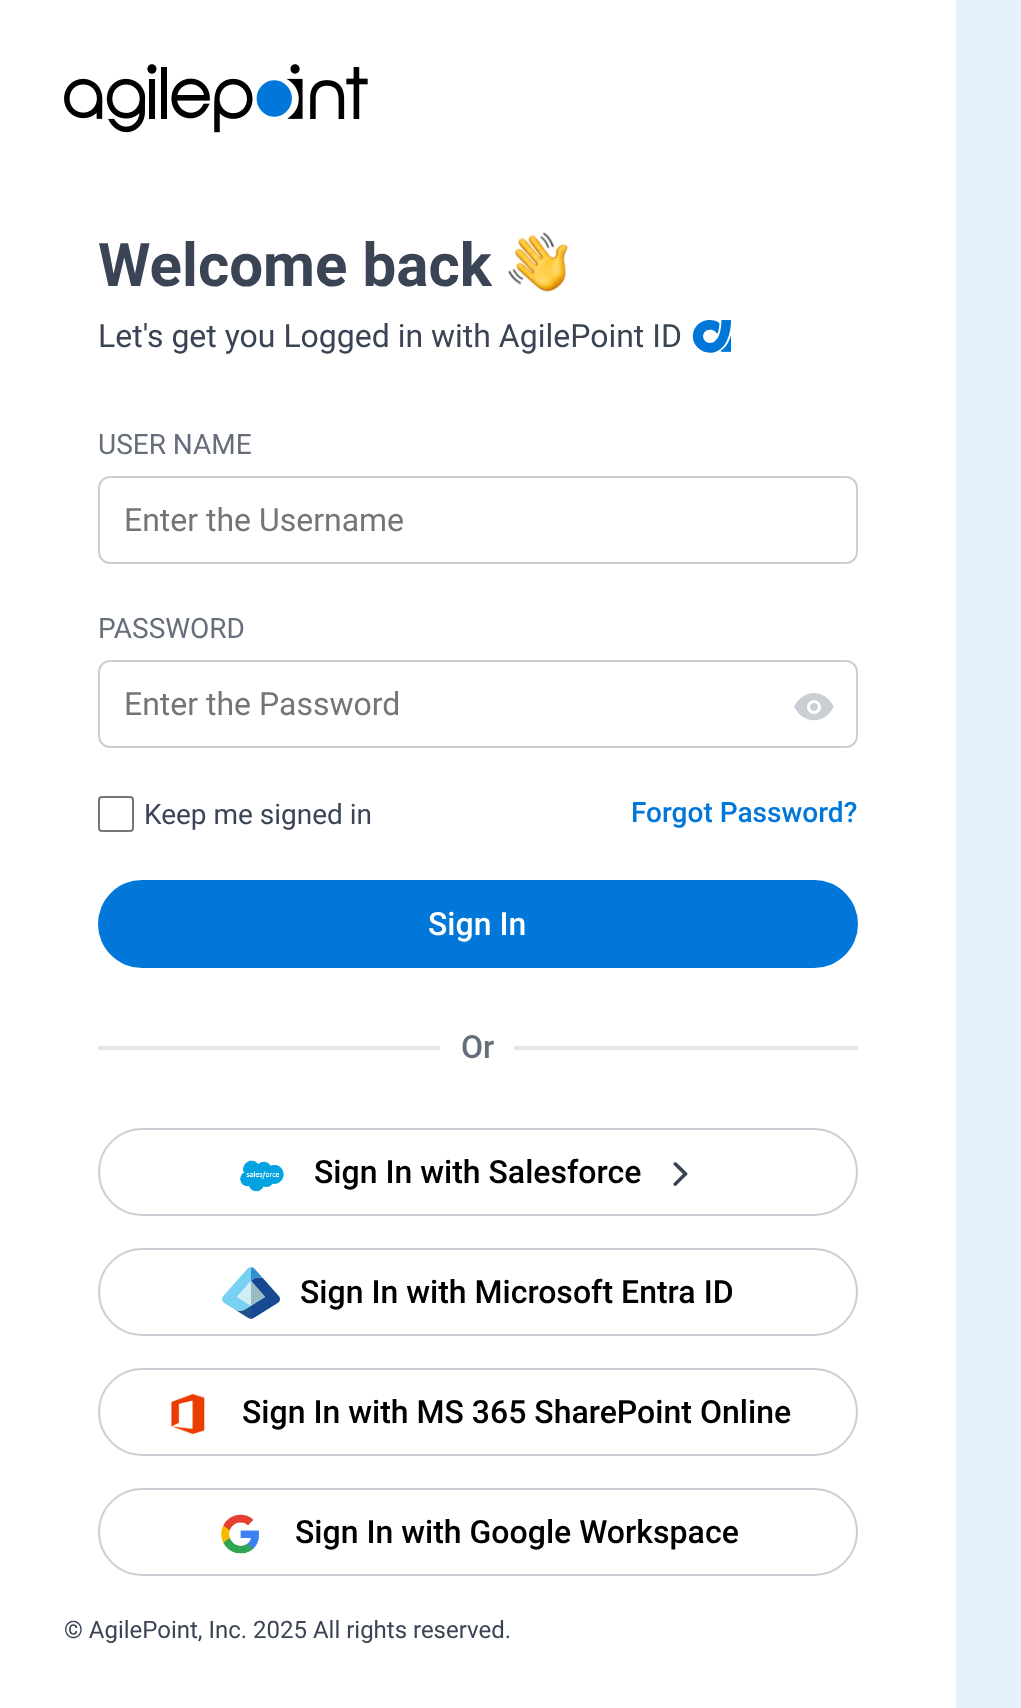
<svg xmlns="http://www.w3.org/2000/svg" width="1021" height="1708">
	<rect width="100%" height="100%" fill="#FFFFFF" />
	<image x="64" y="64" width="304" height="69" href="assets/img1.png" />
	<text x="98" y="286" font-family="Roboto" font-size="60" font-weight="700" fill="#3B4455">Welcome back</text>
	<image x="508" y="232" width="60" height="61" href="assets/img2.png" />
	<text x="98" y="347" font-family="Roboto" font-size="32" fill="#3B4455">Let's get you Logged in with AgilePoint ID</text>
	<image x="692" y="320" width="39" height="33" href="assets/img3.png" />
	<text x="98" y="454" font-family="Roboto" font-size="28" fill="#676E7B">USER NAME</text>
	<rect x="99" y="477" width="758" height="86" rx="11" fill="none" stroke="#CACED5" stroke-width="2" />
	<text x="124" y="531" font-family="Roboto" font-size="32" fill="#757575">Enter the Username</text>
	<text x="98" y="638" font-family="Roboto" font-size="28" fill="#676E7B">PASSWORD</text>
	<rect x="99" y="661" width="758" height="86" rx="11" fill="none" stroke="#CACED5" stroke-width="2" />
	<text x="124" y="715" font-family="Roboto" font-size="32" fill="#757575">Enter the Password</text>
	<image x="794" y="693" width="40" height="28" href="assets/img4.png" />
	<rect x="99" y="797" width="34" height="34" rx="3" fill="none" stroke="#767676" stroke-width="2" />
	<text x="144" y="824" font-family="Roboto" font-size="28" fill="#3B4455">Keep me signed in</text>
	<text x="631" y="822" font-family="Roboto" font-size="28" font-weight="500" fill="#0077D9">Forgot Password?</text>
	<rect x="98" y="880" width="760" height="88" rx="44" fill="#0077D9" />
	<text x="428" y="935" font-family="Roboto" font-size="32" font-weight="500" fill="#FFFFFF">Sign In</text>
	<rect x="98" y="1046" width="342" height="4" fill="#E6E6E6" />
	<text x="461" y="1058" font-family="Roboto" font-size="32" font-weight="500" fill="#676E7B">Or</text>
	<rect x="514" y="1046" width="344" height="4" fill="#E6E6E6" />
	<rect x="99" y="1129" width="758" height="86" rx="43" fill="none" stroke="#CACED5" stroke-width="2" />
	<image x="240" y="1160" width="44" height="32" href="assets/img5.png" />
	<text x="314" y="1183" font-family="Roboto" font-size="32" font-weight="500" fill="#000000">Sign In with Salesforce</text>
	<image x="673" y="1162" width="15" height="24" href="assets/img6.png" />
	<rect x="99" y="1249" width="758" height="86" rx="43" fill="none" stroke="#CACED5" stroke-width="2" />
	<image x="222" y="1267" width="58" height="52" href="assets/img7.png" />
	<text x="300" y="1303" font-family="Roboto" font-size="32" font-weight="500" fill="#000000">Sign In with Microsoft Entra ID</text>
	<rect x="99" y="1369" width="758" height="86" rx="43" fill="none" stroke="#CACED5" stroke-width="2" />
	<image x="171" y="1393" width="34" height="41" href="assets/img8.png" />
	<text x="242" y="1423" font-family="Roboto" font-size="32" font-weight="500" fill="#000000">Sign In with MS 365 SharePoint Online</text>
	<rect x="99" y="1489" width="758" height="86" rx="43" fill="none" stroke="#CACED5" stroke-width="2" />
	<image x="221" y="1514" width="39" height="40" href="assets/img9.png" />
	<text x="295" y="1543" font-family="Roboto" font-size="32" font-weight="500" fill="#000000">Sign In with Google Workspace</text>
	<rect x="956" y="0" width="65" height="1708" fill="#E5F1FB" />
	<text x="64" y="1638" font-family="Roboto" font-size="24" fill="#3B4455">© AgilePoint, Inc. 2025 All rights reserved.</text>
</svg>
